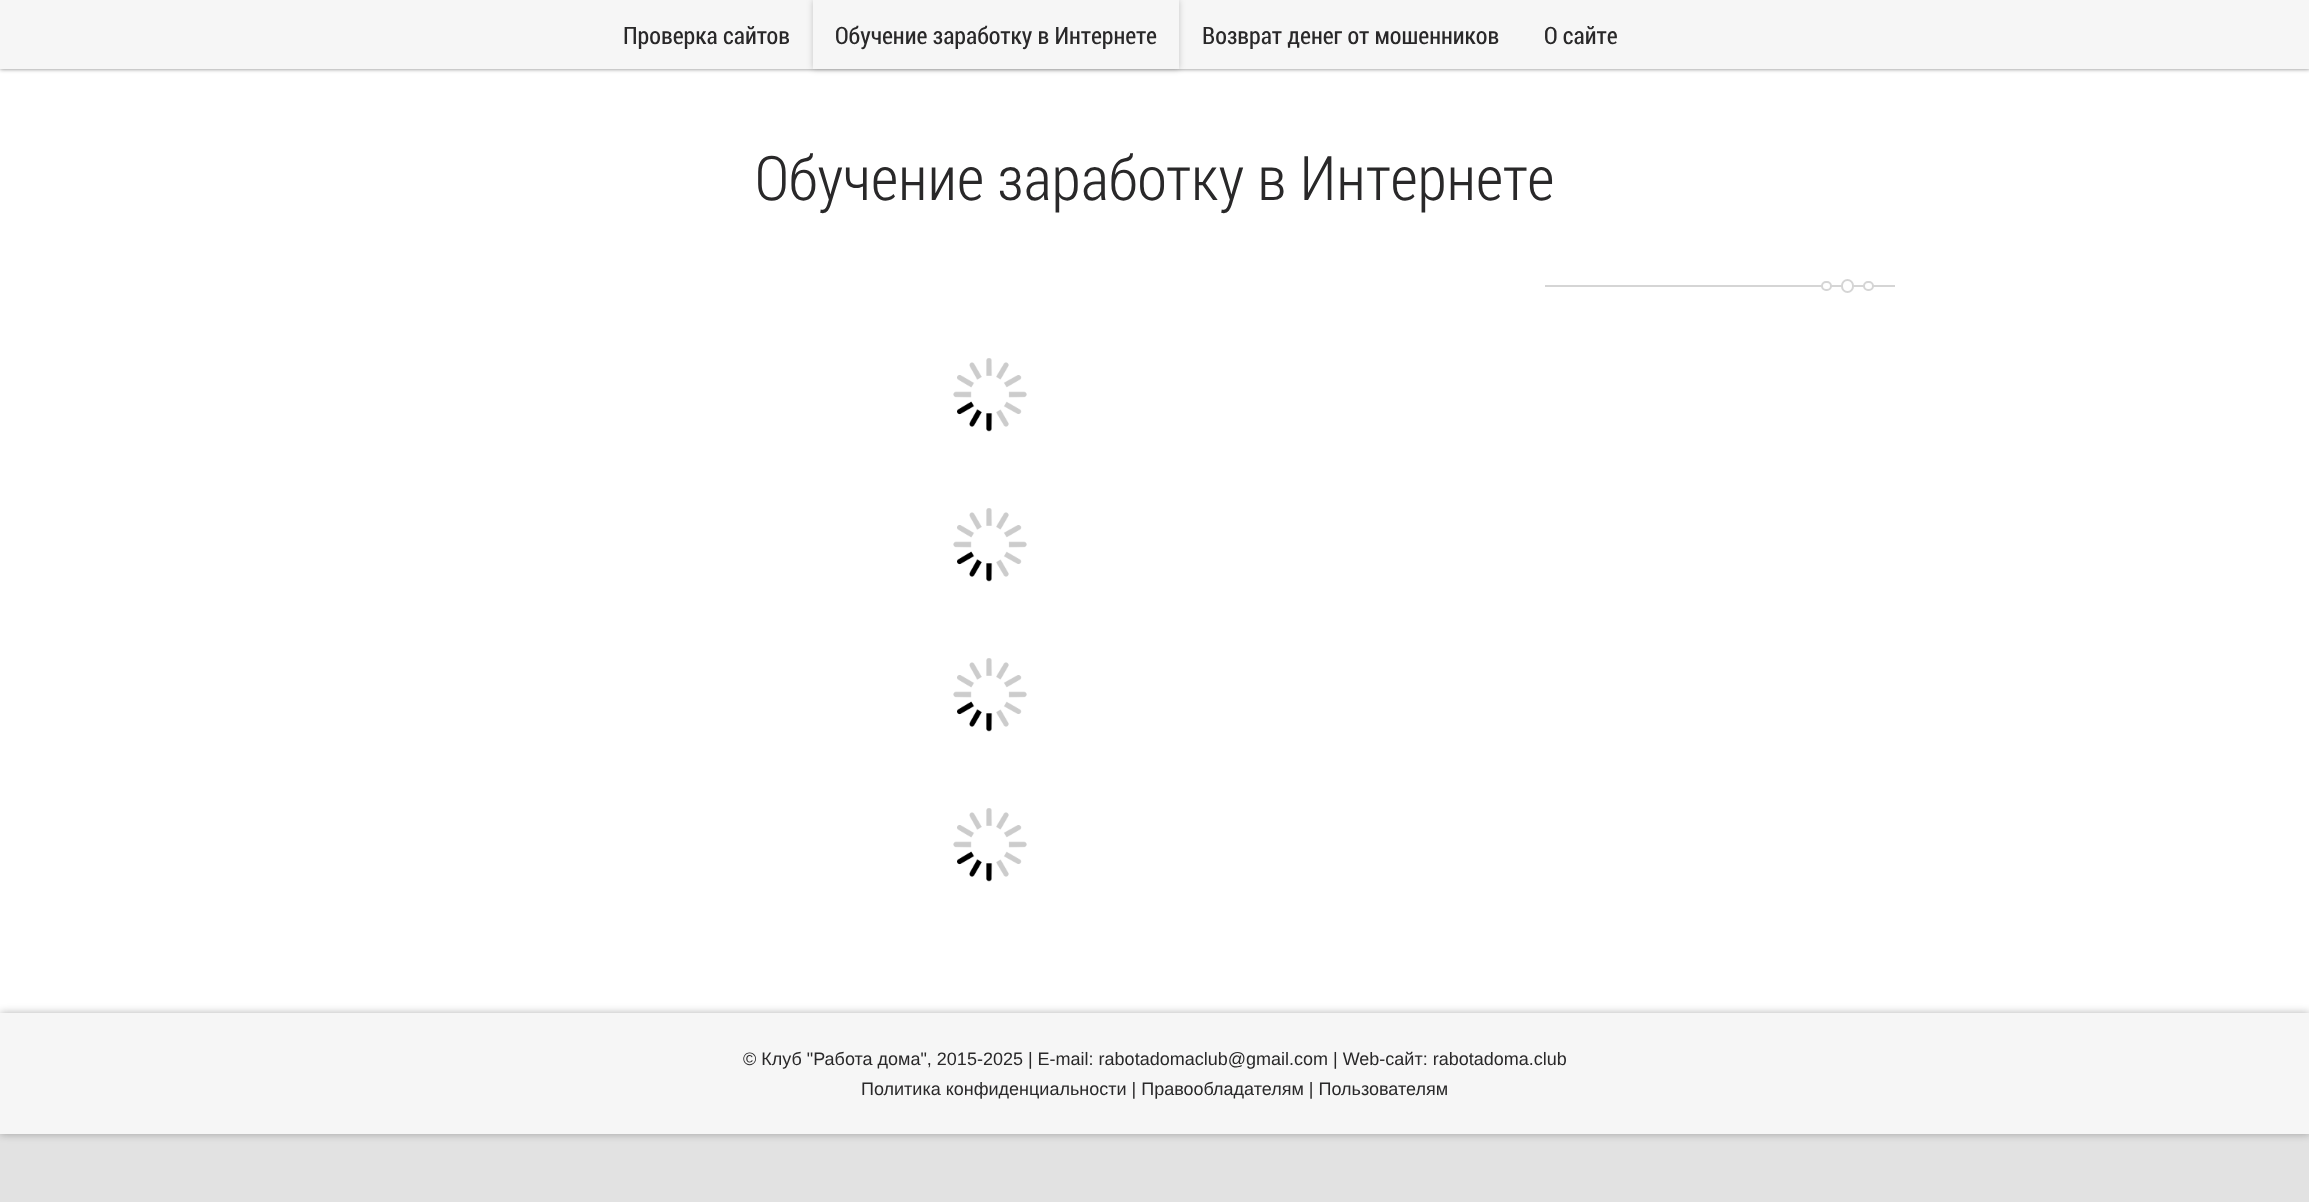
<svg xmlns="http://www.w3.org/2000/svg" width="2309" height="1202">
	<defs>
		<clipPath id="clip1"><path d="M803 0H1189V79H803ZM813 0H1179V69H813Z" clip-rule="evenodd" /></clipPath>
	</defs>
	<rect width="100%" height="100%" fill="#E2E2E2" />
	<rect x="0" y="69" width="2309" height="944" fill="#FFFFFF" />
	<rect x="0" y="0" width="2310" height="69" fill="#000000" fill-opacity="0.5" filter="blur(2px)" />
	<rect x="0" y="0" width="2309" height="69" fill="#F6F6F6" />
	<text x="623" y="44" font-family="Roboto Condensed" font-size="24" fill="#292829">Проверка сайтов</text>
	<g clip-path="url(#clip1)">
		<rect x="813" y="0" width="366" height="69" fill="#000000" fill-opacity="0.2" filter="blur(3px)" />
	</g>
	<g font-family="Roboto Condensed" font-size="24" fill="#292829">
		<text x="835" y="44">Обучение заработку в Интернете</text>
		<text x="1202" y="44">Возврат денег от мошенников</text>
		<text x="1544" y="44">О сайте</text>
	</g>
	<text x="755" y="200" font-family="Roboto Condensed" font-size="61.5" font-weight="300" fill="#292829">Обучение заработку в Интернете</text>
	<rect x="1545" y="285" width="350" height="2" fill="#D5D5D5" />
	<rect x="1822" y="282" width="9" height="8" rx="4" fill="#FFFFFF" stroke="#D5D5D5" stroke-width="2" />
	<rect x="1842" y="280" width="11" height="12" rx="5.5" fill="#FFFFFF" stroke="#D5D5D5" stroke-width="2" />
	<rect x="1864" y="282" width="9" height="8" rx="4" fill="#FFFFFF" stroke="#D5D5D5" stroke-width="2" />
	<image x="953" y="358" width="74" height="74" href="assets/img1.png" />
	<image x="953" y="508" width="74" height="74" href="assets/img1.png" />
	<image x="953" y="658" width="74" height="74" href="assets/img1.png" />
	<image x="953" y="808" width="74" height="74" href="assets/img1.png" />
	<rect x="0" y="1013" width="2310" height="121" fill="#000000" fill-opacity="0.3" filter="blur(4px)" />
	<rect x="0" y="1013" width="2309" height="121" fill="#F6F6F6" />
	<g font-family="Liberation Sans" font-size="18" fill="#292829">
		<text x="743" y="1065">© Клуб "Работа дома", 2015-2025 | E-mail: rabotadomaclub@gmail.com | Web-сайт: rabotadoma.club</text>
		<text x="861" y="1095">Политика конфиденциальности | Правообладателям | Пользователям</text>
	</g>
</svg>
